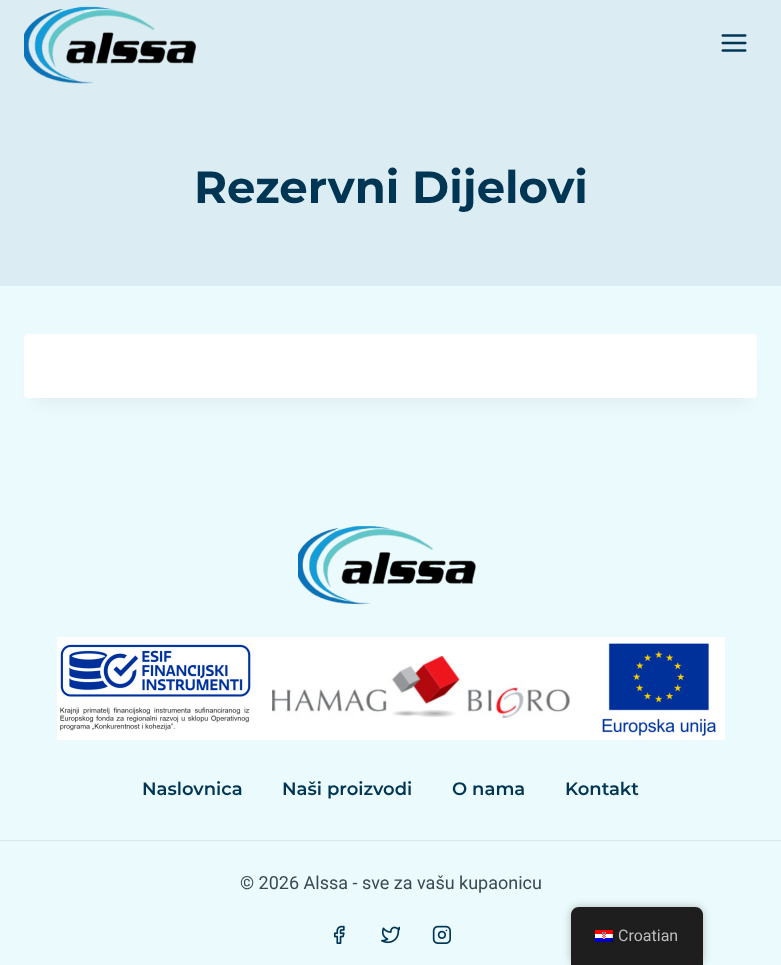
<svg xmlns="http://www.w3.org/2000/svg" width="781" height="965">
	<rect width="100%" height="100%" fill="#EBFAFC" />
	<rect x="0" y="0" width="781" height="286" fill="#DBEDF2" />
	<image x="24" y="6" width="173" height="78" href="assets/img1.png" />
	<image x="721" y="34" width="26" height="18" href="assets/img2.png" />
	<text x="194" y="203" font-family="Montserrat" font-size="45" font-weight="700" fill="#003554">Rezervni Dijelovi</text>
	<rect x="34" y="359" width="713" height="44" fill="#000000" fill-opacity="0.05" filter="blur(7.5px)" />
	<rect x="24" y="334" width="733" height="64" rx="4" fill="#FFFFFF" />
	<image x="298" y="526" width="178" height="79" href="assets/img3.png" />
	<image x="57" y="637" width="668" height="103" href="assets/img4.png" />
	<g font-family="Montserrat" font-size="18" font-weight="600" fill="#003554">
		<text x="142" y="795">Naslovnica</text>
		<text x="282" y="795">Naši proizvodi</text>
		<text x="452" y="795">O nama</text>
		<text x="565" y="795">Kontakt</text>
	</g>
	<rect x="0" y="840" width="781" height="1" fill="#D2E8EB" />
	<text x="240" y="889" font-family="Roboto" font-size="18" fill="#3A4952">© 2026 Alssa - sve za vašu kupaonicu</text>
	<image x="333" y="925" width="12" height="19" href="assets/img5.png" />
	<image x="381" y="926" width="19" height="18" href="assets/img6.png" />
	<image x="432" y="925" width="19" height="19" href="assets/img7.png" />
	<rect x="571" y="907" width="132" height="58" rx="8" fill="#000000" fill-opacity="0.25" filter="blur(4px)" />
	<path d="M579 907H695C699.5 907 703 910.5 703 915V965H571V915C571 910.5 574.5 907 579 907Z" fill="#1E1E1E" />
	<image x="595" y="930" width="18" height="12" href="assets/img8.png" />
	<text x="618" y="941" font-family="Roboto" font-size="16" fill="#BDBDBD">Croatian</text>
</svg>
